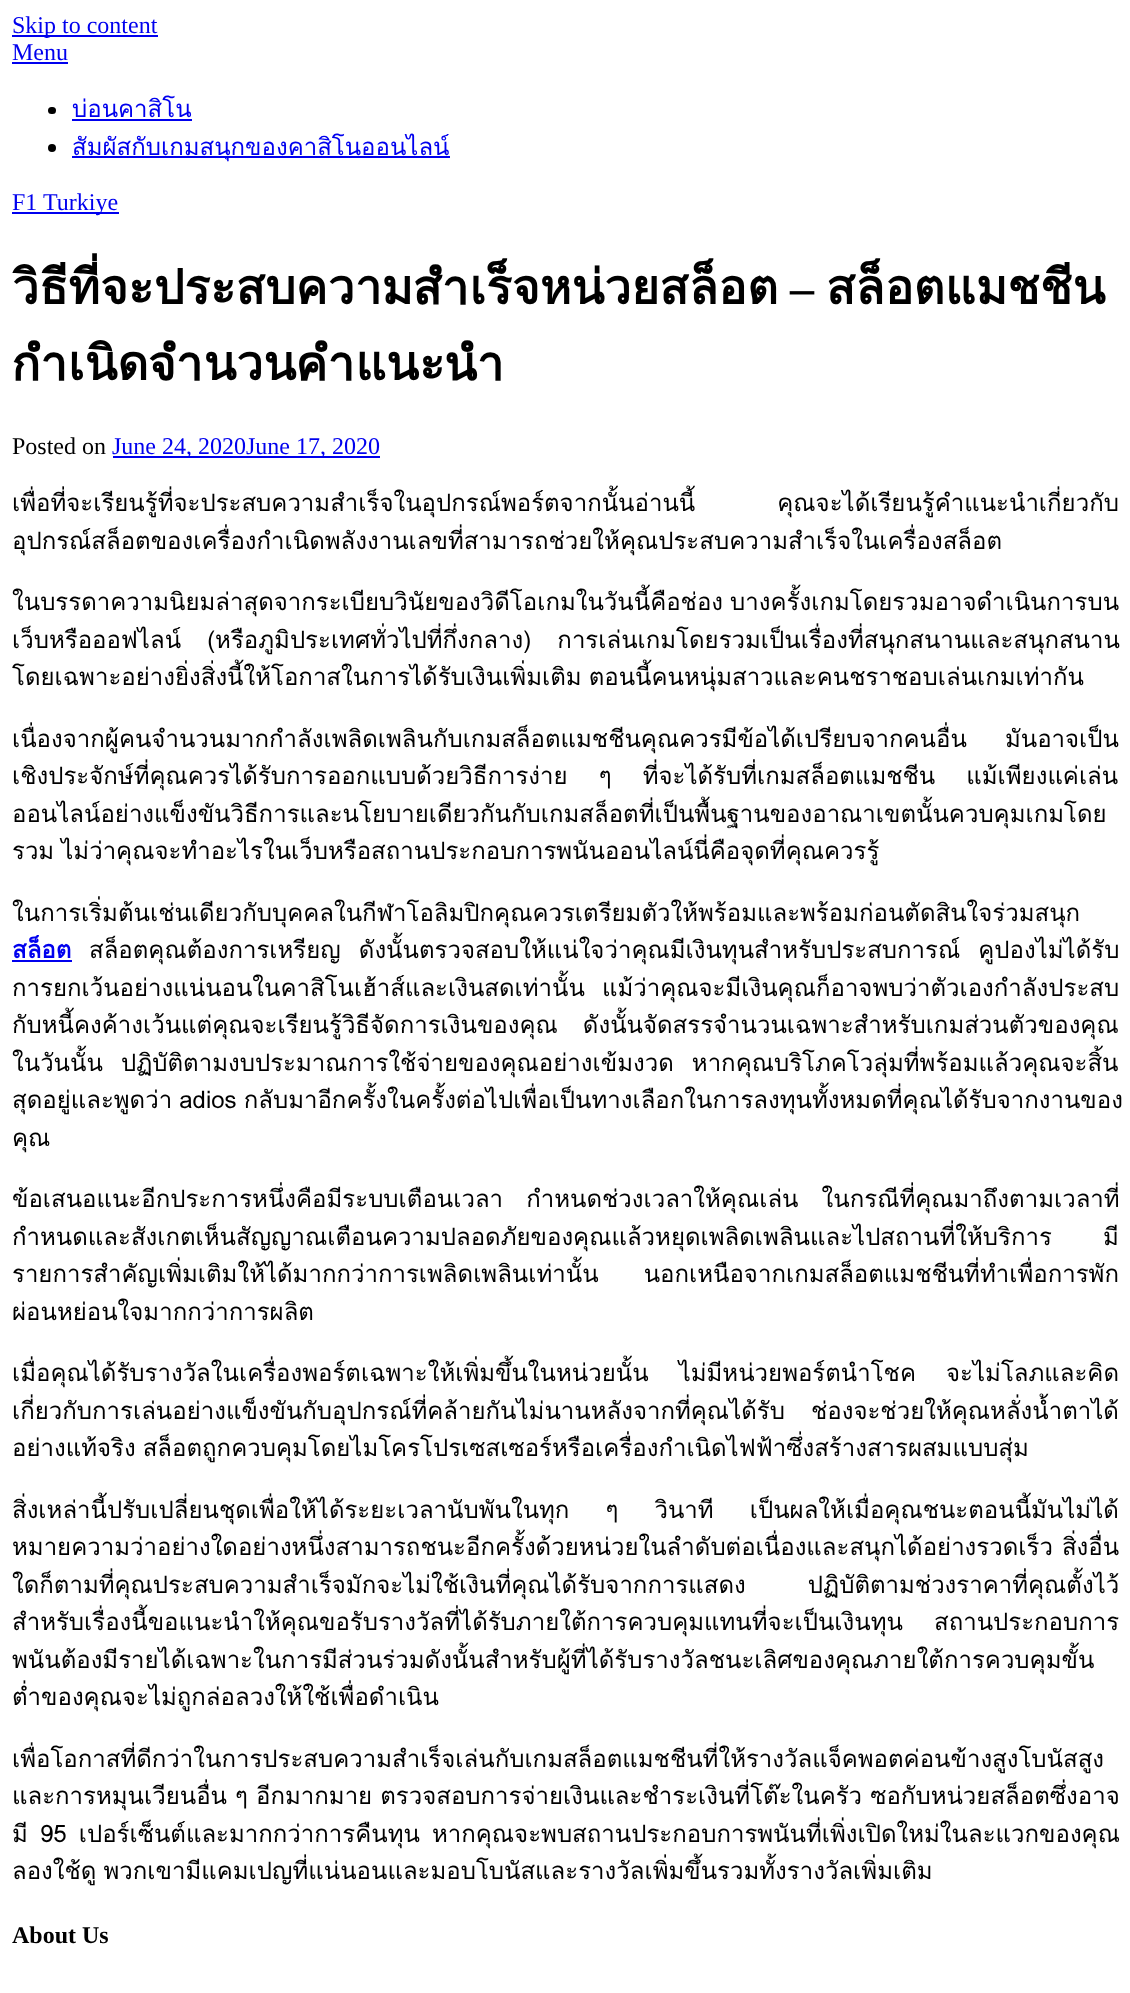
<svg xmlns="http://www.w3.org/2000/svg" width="1130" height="1993">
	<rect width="100%" height="100%" fill="#FFFFFF" />
	<rect x="12" y="35" width="146" height="2" fill="#0000EE" />
	<g font-family="Liberation Serif" font-size="24" fill="#0000EE">
		<text x="12" y="33">Skip to content</text>
		<text x="12" y="60">Menu</text>
	</g>
	<rect x="12" y="62" width="56" height="2" fill="#0000EE" />
	<rect x="48" y="107" width="8" height="7" rx="3.5" fill="#000000" />
	<text x="72" y="117" font-family="Loma" font-size="24" fill="#0000EE">บ่อนคาสิโน</text>
	<rect x="72" y="119" width="120" height="2" fill="#0000EE" />
	<circle cx="52" cy="148" r="4" fill="#000000" />
	<rect x="72" y="156" width="378" height="2" fill="#0000EE" />
	<text x="72" y="155" font-family="Loma" font-size="24" fill="#0000EE">สัมผัสกับเกมสนุกของคาสิโนออนไลน์</text>
	<rect x="12" y="212" width="107" height="2" fill="#0000EE" />
	<text x="12" y="210" font-family="Liberation Serif" font-size="24" fill="#0000EE">F1 Turkiye</text>
	<text x="12" y="304" font-family="Loma" font-size="48" font-weight="700" fill="#000000">วิธีที่จะประสบความสำเร็จหน่วยสล็อต</text>
	<text x="790" y="304" font-family="Liberation Serif" font-size="48" font-weight="700" fill="#000000">–</text>
	<g font-family="Loma" font-size="48" font-weight="700" fill="#000000">
		<text x="826" y="304">สล็อตแมชชีน</text>
		<text x="12" y="380">กำเนิดจำนวนคำแนะนำ</text>
	</g>
	<text x="12" y="454" font-family="Liberation Serif" font-size="24" fill="#000000">Posted on</text>
	<rect x="113" y="456" width="267" height="2" fill="#0000EE" />
	<text x="112" y="454" font-family="Liberation Serif" font-size="24" fill="#0000EE">June 24, 2020June 17, 2020</text>
	<g font-family="Loma" font-size="24" fill="#000000">
		<text x="12" y="511" word-spacing="74">เพื่อที่จะเรียนรู้ที่จะประสบความสำเร็จในอุปกรณ์พอร์ตจากนั้นอ่านนี้ คุณจะได้เรียนรู้คำแนะนำเกี่ยวกับ</text>
		<text x="12" y="549">อุปกรณ์สล็อตของเครื่องกำเนิดพลังงานเลขที่สามารถช่วยให้คุณประสบความสำเร็จในเครื่องสล็อต</text>
		<text x="12" y="610" word-spacing="-1">ในบรรดาความนิยมล่าสุดจากระเบียบวินัยของวิดีโอเกมในวันนี้คือช่อง บางครั้งเกมโดยรวมอาจดำเนินการบน</text>
		<text x="12" y="648" word-spacing="18">เว็บหรือออฟไลน์ (หรือภูมิประเทศทั่วไปที่กึ่งกลาง) การเล่นเกมโดยรวมเป็นเรื่องที่สนุกสนานและสนุกสนาน</text>
		<text x="12" y="685" word-spacing="-1">โดยเฉพาะอย่างยิ่งสิ่งนี้ให้โอกาสในการได้รับเงินเพิ่มเติม ตอนนี้คนหนุ่มสาวและคนชราชอบเล่นเกมเท่ากัน</text>
		<text x="12" y="747" word-spacing="30">เนื่องจากผู้คนจำนวนมากกำลังเพลิดเพลินกับเกมสล็อตแมชชีนคุณควรมีข้อได้เปรียบจากคนอื่น มันอาจเป็น</text>
		<text x="12" y="784" word-spacing="23">เชิงประจักษ์ที่คุณควรได้รับการออกแบบด้วยวิธีการง่าย ๆ ที่จะได้รับที่เกมสล็อตแมชชีน แม้เพียงแค่เล่น</text>
		<text x="12" y="822">ออนไลน์อย่างแข็งขันวิธีการและนโยบายเดียวกันกับเกมสล็อตที่เป็นพื้นฐานของอาณาเขตนั้นควบคุมเกมโดย</text>
		<text x="12" y="859" word-spacing="-1">รวม ไม่ว่าคุณจะทำอะไรในเว็บหรือสถานประกอบการพนันออนไลน์นี่คือจุดที่คุณควรรู้</text>
		<text x="12" y="921">ในการเริ่มต้นเช่นเดียวกับบุคคลในกีฬาโอลิมปิกคุณควรเตรียมตัวให้พร้อมและพร้อมก่อนตัดสินใจร่วมสนุก</text>
	</g>
	<text x="12" y="958" font-family="Loma" font-size="24" font-weight="700" fill="#0000EE">สล็อต</text>
	<rect x="12" y="960" width="60" height="2" fill="#0000EE" />
	<g font-family="Loma" font-size="24" fill="#000000">
		<text x="89" y="958" word-spacing="10">สล็อตคุณต้องการเหรียญ ดังนั้นตรวจสอบให้แน่ใจว่าคุณมีเงินทุนสำหรับประสบการณ์ คูปองไม่ได้รับ</text>
		<text x="12" y="996" word-spacing="9">การยกเว้นอย่างแน่นอนในคาสิโนเฮ้าส์และเงินสดเท่านั้น แม้ว่าคุณจะมีเงินคุณก็อาจพบว่าตัวเองกำลังประสบ</text>
		<text x="12" y="1033" word-spacing="17">กับหนี้คงค้างเว้นแต่คุณจะเรียนรู้วิธีจัดการเงินของคุณ ดังนั้นจัดสรรจำนวนเฉพาะสำหรับเกมส่วนตัวของคุณ</text>
		<text x="12" y="1071" word-spacing="10">ในวันนั้น ปฏิบัติตามงบประมาณการใช้จ่ายของคุณอย่างเข้มงวด หากคุณบริโภคโวลุ่มที่พร้อมแล้วคุณจะสิ้น</text>
		<text x="12" y="1108" word-spacing="-1">สุดอยู่และพูดว่า adios กลับมาอีกครั้งในครั้งต่อไปเพื่อเป็นทางเลือกในการลงทุนทั้งหมดที่คุณได้รับจากงานของ</text>
		<text x="12" y="1146">คุณ</text>
		<text x="12" y="1207" word-spacing="15">ข้อเสนอแนะอีกประการหนึ่งคือมีระบบเตือนเวลา กำหนดช่วงเวลาให้คุณเล่น ในกรณีที่คุณมาถึงตามเวลาที่</text>
		<text x="12" y="1245" word-spacing="43">กำหนดและสังเกตเห็นสัญญาณเตือนความปลอดภัยของคุณแล้วหยุดเพลิดเพลินและไปสถานที่ให้บริการ มี</text>
		<text x="12" y="1282" word-spacing="37">รายการสำคัญเพิ่มเติมให้ได้มากกว่าการเพลิดเพลินเท่านั้น นอกเหนือจากเกมสล็อตแมชชีนที่ทำเพื่อการพัก</text>
		<text x="12" y="1320">ผ่อนหย่อนใจมากกว่าการผลิต</text>
		<text x="12" y="1381" word-spacing="22">เมื่อคุณได้รับรางวัลในเครื่องพอร์ตเฉพาะให้เพิ่มขึ้นในหน่วยนั้น ไม่มีหน่วยพอร์ตนำโชค จะไม่โลภและคิด</text>
		<text x="12" y="1419" word-spacing="18">เกี่ยวกับการเล่นอย่างแข็งขันกับอุปกรณ์ที่คล้ายกันไม่นานหลังจากที่คุณได้รับ ช่องจะช่วยให้คุณหลั่งน้ำตาได้</text>
		<text x="12" y="1456" word-spacing="-1">อย่างแท้จริง สล็อตถูกควบคุมโดยไมโครโปรเซสเซอร์หรือเครื่องกำเนิดไฟฟ้าซึ่งสร้างสารผสมแบบสุ่ม</text>
		<text x="12" y="1518" word-spacing="28">สิ่งเหล่านี้ปรับเปลี่ยนชุดเพื่อให้ได้ระยะเวลานับพันในทุก ๆ วินาที เป็นผลให้เมื่อคุณชนะตอนนี้มันไม่ได้</text>
		<text x="12" y="1555" word-spacing="1">หมายความว่าอย่างใดอย่างหนึ่งสามารถชนะอีกครั้งด้วยหน่วยในลำดับต่อเนื่องและสนุกได้อย่างรวดเร็ว สิ่งอื่น</text>
		<text x="12" y="1593" word-spacing="54">ใดก็ตามที่คุณประสบความสำเร็จมักจะไม่ใช้เงินที่คุณได้รับจากการแสดง ปฏิบัติตามช่วงราคาที่คุณตั้งไว้</text>
		<text x="12" y="1630" word-spacing="23">สำหรับเรื่องนี้ขอแนะนำให้คุณขอรับรางวัลที่ได้รับภายใต้การควบคุมแทนที่จะเป็นเงินทุน สถานประกอบการ</text>
		<text x="12" y="1668">พนันต้องมีรายได้เฉพาะในการมีส่วนร่วมดังนั้นสำหรับผู้ที่ได้รับรางวัลชนะเลิศของคุณภายใต้การควบคุมขั้น</text>
		<text x="12" y="1705">ต่ำของคุณจะไม่ถูกล่อลวงให้ใช้เพื่อดำเนิน</text>
		<text x="12" y="1767">เพื่อโอกาสที่ดีกว่าในการประสบความสำเร็จเล่นกับเกมสล็อตแมชชีนที่ให้รางวัลแจ็คพอตค่อนข้างสูงโบนัสสูง</text>
		<text x="12" y="1804">และการหมุนเวียนอื่น ๆ อีกมากมาย ตรวจสอบการจ่ายเงินและชำระเงินที่โต๊ะในครัว ซอกับหน่วยสล็อตซึ่งอาจ</text>
		<text x="12" y="1842" word-spacing="4">มี 95 เปอร์เซ็นต์และมากกว่าการคืนทุน หากคุณจะพบสถานประกอบการพนันที่เพิ่งเปิดใหม่ในละแวกของคุณ</text>
		<text x="12" y="1879" word-spacing="-1">ลองใช้ดู พวกเขามีแคมเปญที่แน่นอนและมอบโบนัสและรางวัลเพิ่มขึ้นรวมทั้งรางวัลเพิ่มเติม</text>
	</g>
	<text x="12" y="1943" font-family="Liberation Serif" font-size="24" font-weight="700" fill="#000000">About Us</text>
</svg>
